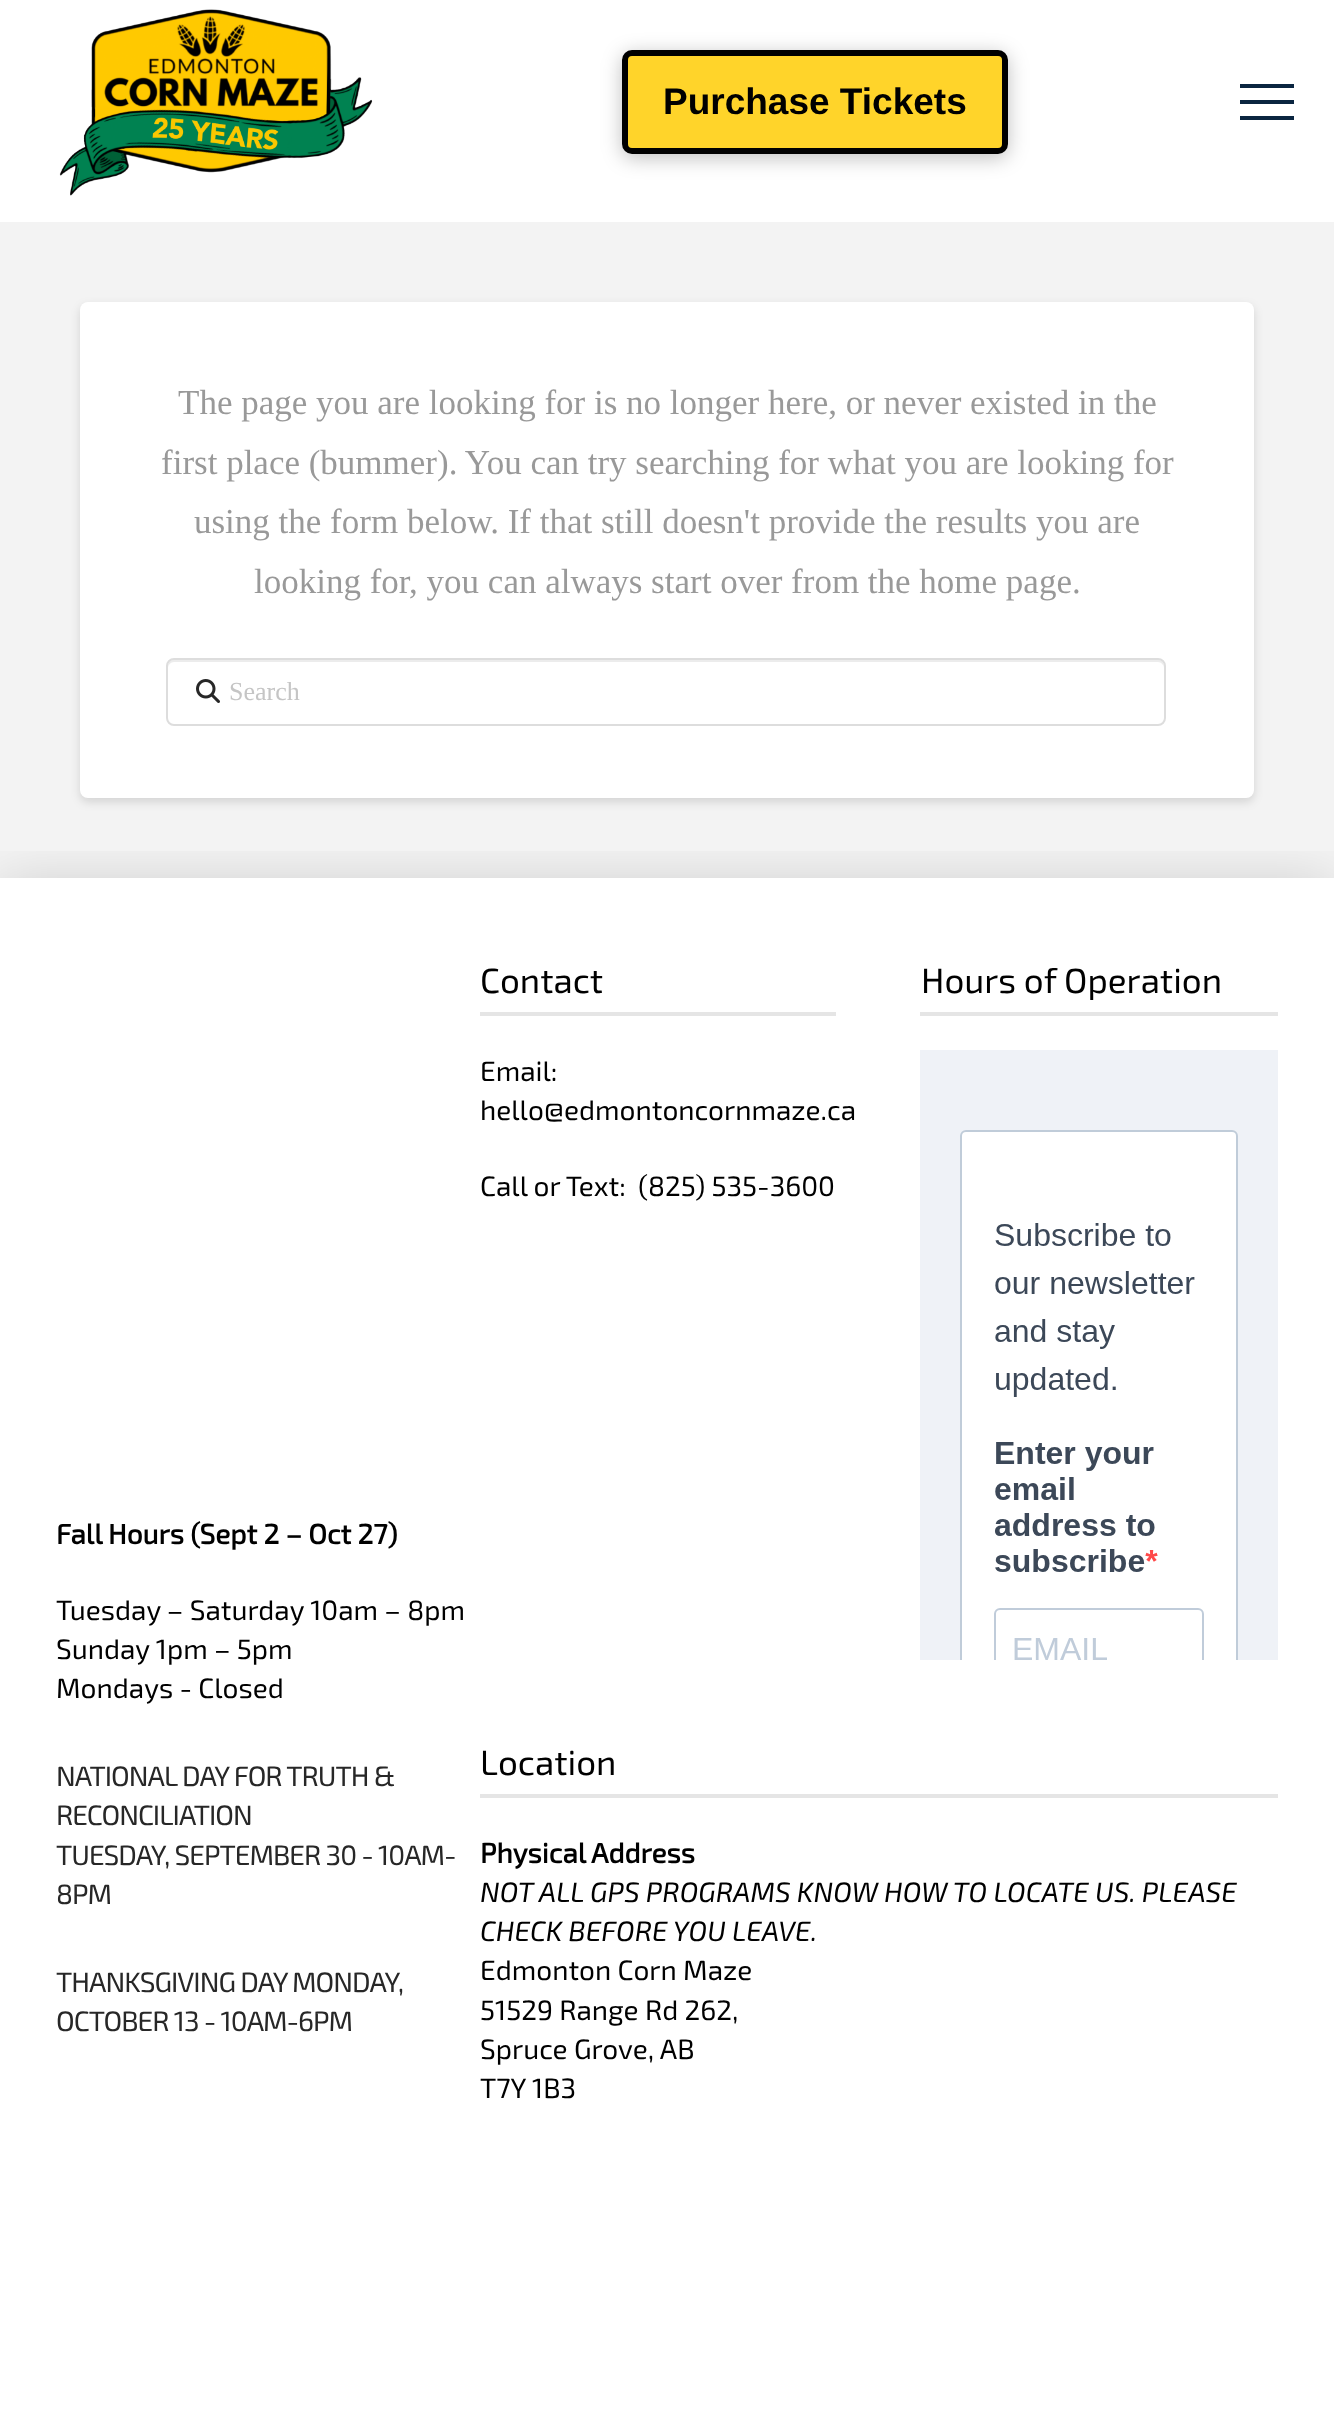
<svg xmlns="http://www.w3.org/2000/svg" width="1334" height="2413">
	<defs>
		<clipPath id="clip1"><rect x="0" y="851" width="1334" height="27" /></clipPath>
	</defs>
	<rect width="100%" height="100%" fill="#F3F3F3" />
	<rect x="0" y="0" width="1334" height="222" fill="#FFFFFF" />
	<image x="59" y="9" width="314" height="187" href="assets/img1.png" />
	<rect x="622" y="54" width="386" height="104" rx="10" fill="#000000" fill-opacity="0.25" filter="blur(10px)" />
	<rect x="625" y="53" width="380" height="98" rx="7" fill="#FFD42A" stroke="#000000" stroke-width="6" />
	<text x="663" y="114" font-family="Liberation Sans" font-size="37" font-weight="700" fill="#000000">Purchase Tickets</text>
	<rect x="1240" y="84" width="54" height="4" fill="#0A2540" />
	<rect x="1240" y="100" width="54" height="4" fill="#0A2540" />
	<rect x="1240" y="116" width="54" height="4" fill="#0A2540" />
	<rect x="80" y="306" width="1174" height="496" rx="8" fill="#000000" fill-opacity="0.13" filter="blur(5px)" />
	<rect x="80" y="302" width="1174" height="496" rx="8" fill="#FFFFFF" />
	<g font-family="Liberation Serif" font-size="35" fill="#999999">
		<text x="178" y="414">The page you are looking for is no longer here, or never existed in the</text>
		<text x="161" y="474">first place (bummer). You can try searching for what you are looking for</text>
		<text x="194" y="533">using the form below. If that still doesn't provide the results you are</text>
		<text x="254" y="593">looking for, you can always start over from the home page.</text>
	</g>
	<path d="M174 662H1158C1161 662 1164 665 1164 668C1164 664 1163 660 1158 660H174C169 660 168 664 168 668C168 665 171 662 174 662Z" fill="#ECECEC" />
	<rect x="167" y="659" width="998" height="66" rx="7" fill="none" stroke="#DDDDDD" stroke-width="2" />
	<image x="196" y="679" width="24" height="24" href="assets/img2.png" />
	<text x="229" y="700" font-family="Liberation Serif" font-size="26" fill="#C5C5C5">Search</text>
	<rect x="0" y="878" width="1334" height="1535" fill="#FFFFFF" />
	<g clip-path="url(#clip1)">
		<rect x="0" y="882" width="1334" height="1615" fill="#000000" fill-opacity="0.15" filter="blur(28px)" />
	</g>
	<text x="56" y="1544" font-family="'Exo 2'" font-size="28" font-weight="700" fill="#000000">Fall Hours (Sept 2 – Oct 27)</text>
	<g font-family="'Exo 2'" font-size="28" fill="#000000">
		<text x="56" y="1620">Tuesday – Saturday 10am – 8pm</text>
		<text x="56" y="1659">Sunday 1pm – 5pm</text>
		<text x="56" y="1698">Mondays - Closed</text>
	</g>
	<g font-family="'Exo 2'" font-size="28" letter-spacing="-1" fill="#272727">
		<text x="56" y="1786">NATIONAL DAY FOR TRUTH &amp;</text>
		<text x="56" y="1825">RECONCILIATION</text>
		<text x="56" y="1865">TUESDAY, SEPTEMBER 30 - 10AM-</text>
		<text x="56" y="1904">8PM</text>
		<text x="56" y="1992">THANKSGIVING DAY MONDAY,</text>
		<text x="56" y="2031">OCTOBER 13 - 10AM-6PM</text>
	</g>
	<rect x="480" y="1012" width="356" height="4" fill="#E5E5E5" />
	<text x="480" y="993" font-family="'Exo 2'" font-size="35" fill="#000000">Contact</text>
	<g font-family="'Exo 2'" font-size="28" fill="#000000">
		<text x="480" y="1081">Email:</text>
		<text x="480" y="1120">hello@edmontoncornmaze.ca</text>
		<text x="480" y="1196">Call or Text:</text>
		<text x="638" y="1196">(825) 535-3600</text>
	</g>
	<rect x="920" y="1012" width="358" height="4" fill="#E5E5E5" />
	<text x="921" y="993" font-family="'Exo 2'" font-size="35" fill="#000000">Hours of Operation</text>
	<image x="920" y="1050" width="358" height="610" href="assets/img3.png" />
	<rect x="480" y="1794" width="798" height="4" fill="#E5E5E5" />
	<text x="480" y="1775" font-family="'Exo 2'" font-size="35" fill="#000000">Location</text>
	<text x="480" y="1863" font-family="'Exo 2'" font-size="28" font-weight="700" fill="#000000">Physical Address</text>
	<g font-family="'Exo 2'" font-size="28" font-style="italic" fill="#000000">
		<text x="480" y="1902">NOT ALL GPS PROGRAMS KNOW HOW TO LOCATE US. PLEASE</text>
		<text x="480" y="1941">CHECK BEFORE YOU LEAVE.</text>
	</g>
	<g font-family="'Exo 2'" font-size="28" fill="#000000">
		<text x="480" y="1980">Edmonton Corn Maze</text>
		<text x="480" y="2020">51529 Range Rd 262,</text>
		<text x="480" y="2059">Spruce Grove, AB</text>
		<text x="480" y="2098">T7Y 1B3</text>
	</g>
</svg>
